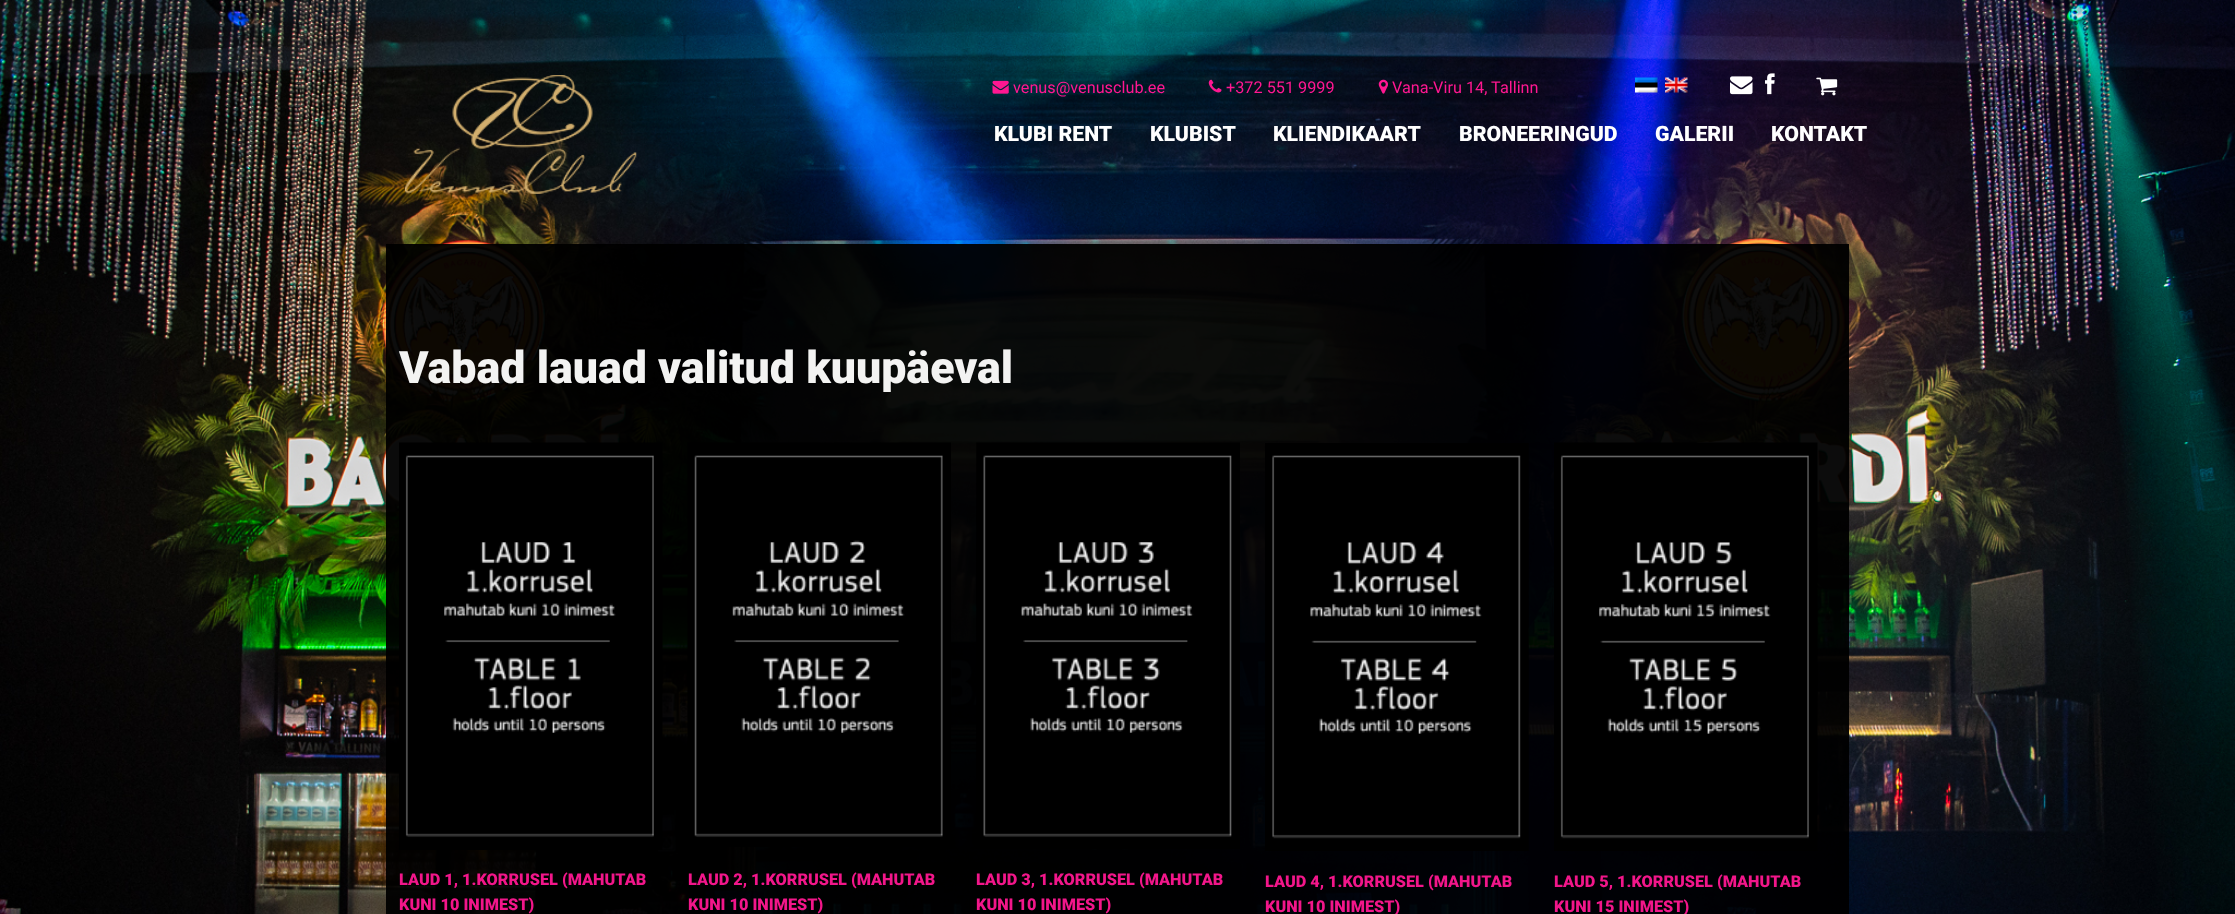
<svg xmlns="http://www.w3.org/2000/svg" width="2235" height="914">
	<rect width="100%" height="100%" fill="#FFFFFF" />
	<image x="0" y="0" width="2235" height="914" href="assets/img1.png" />
	<image x="405" y="75" width="232" height="119" href="assets/img2.png" />
	<image x="992" y="80" width="17" height="14" href="assets/img3.png" />
	<text x="1013" y="93" font-family="Roboto" font-size="16.25" fill="#FF1791">venus@venusclub.ee</text>
	<image x="1208" y="79" width="14" height="14" href="assets/img4.png" />
	<text x="1226" y="93" font-family="Roboto" font-size="16.25" fill="#FF1791">+372 551 9999</text>
	<image x="1378" y="79" width="10" height="15" href="assets/img5.png" />
	<text x="1392" y="93" font-family="Roboto" font-size="16.25" fill="#FF1791">Vana-Viru 14, Tallinn</text>
	<image x="1635" y="77" width="23" height="16" href="assets/img6.png" />
	<image x="1665" y="77" width="23" height="16" href="assets/img7.png" />
	<image x="1730" y="76" width="23" height="19" href="assets/img8.png" />
	<image x="1765" y="73" width="10" height="22" href="assets/img9.png" />
	<image x="1816" y="77" width="22" height="19" href="assets/img10.png" />
	<g font-family="Roboto" font-size="21.25" font-weight="900" fill="#FFFFFF">
		<text x="994" y="141">KLUBI RENT</text>
		<text x="1150" y="141">KLUBIST</text>
		<text x="1273" y="141">KLIENDIKAART</text>
		<text x="1459" y="141">BRONEERINGUD</text>
		<text x="1655" y="141">GALERII</text>
		<text x="1771" y="141">KONTAKT</text>
	</g>
	<rect x="386" y="244" width="1463" height="670" fill="#000000" fill-opacity="0.95" />
	<text x="399" y="383" font-family="Roboto" font-size="44.75" font-weight="900" fill="#F3F3F2">Vabad lauad valitud kuupäeval</text>
	<image x="399" y="442" width="264" height="408" href="assets/img11.png" />
	<g font-family="Roboto" font-size="16.25" font-weight="900" fill="#F2168A">
		<text x="399" y="885">LAUD 1, 1.KORRUSEL (MAHUTAB</text>
		<text x="399" y="910">KUNI 10 INIMEST)</text>
	</g>
	<image x="687" y="442" width="264" height="405" href="assets/img12.png" />
	<g font-family="Roboto" font-size="16.25" font-weight="900" fill="#F2168A">
		<text x="688" y="885">LAUD 2, 1.KORRUSEL (MAHUTAB</text>
		<text x="688" y="910">KUNI 10 INIMEST)</text>
	</g>
	<image x="976" y="442" width="264" height="407" href="assets/img13.png" />
	<g font-family="Roboto" font-size="16.25" font-weight="900" fill="#F2168A">
		<text x="976" y="885">LAUD 3, 1.KORRUSEL (MAHUTAB</text>
		<text x="976" y="910">KUNI 10 INIMEST)</text>
	</g>
	<image x="1265" y="443" width="264" height="408" href="assets/img14.png" />
	<g font-family="Roboto" font-size="16.25" font-weight="900" fill="#F2168A">
		<text x="1265" y="887">LAUD 4, 1.KORRUSEL (MAHUTAB</text>
		<text x="1265" y="912">KUNI 10 INIMEST)</text>
	</g>
	<image x="1554" y="442" width="264" height="409" href="assets/img15.png" />
	<g font-family="Roboto" font-size="16.25" font-weight="900" fill="#F2168A">
		<text x="1554" y="887">LAUD 5, 1.KORRUSEL (MAHUTAB</text>
		<text x="1554" y="912">KUNI 15 INIMEST)</text>
	</g>
</svg>
